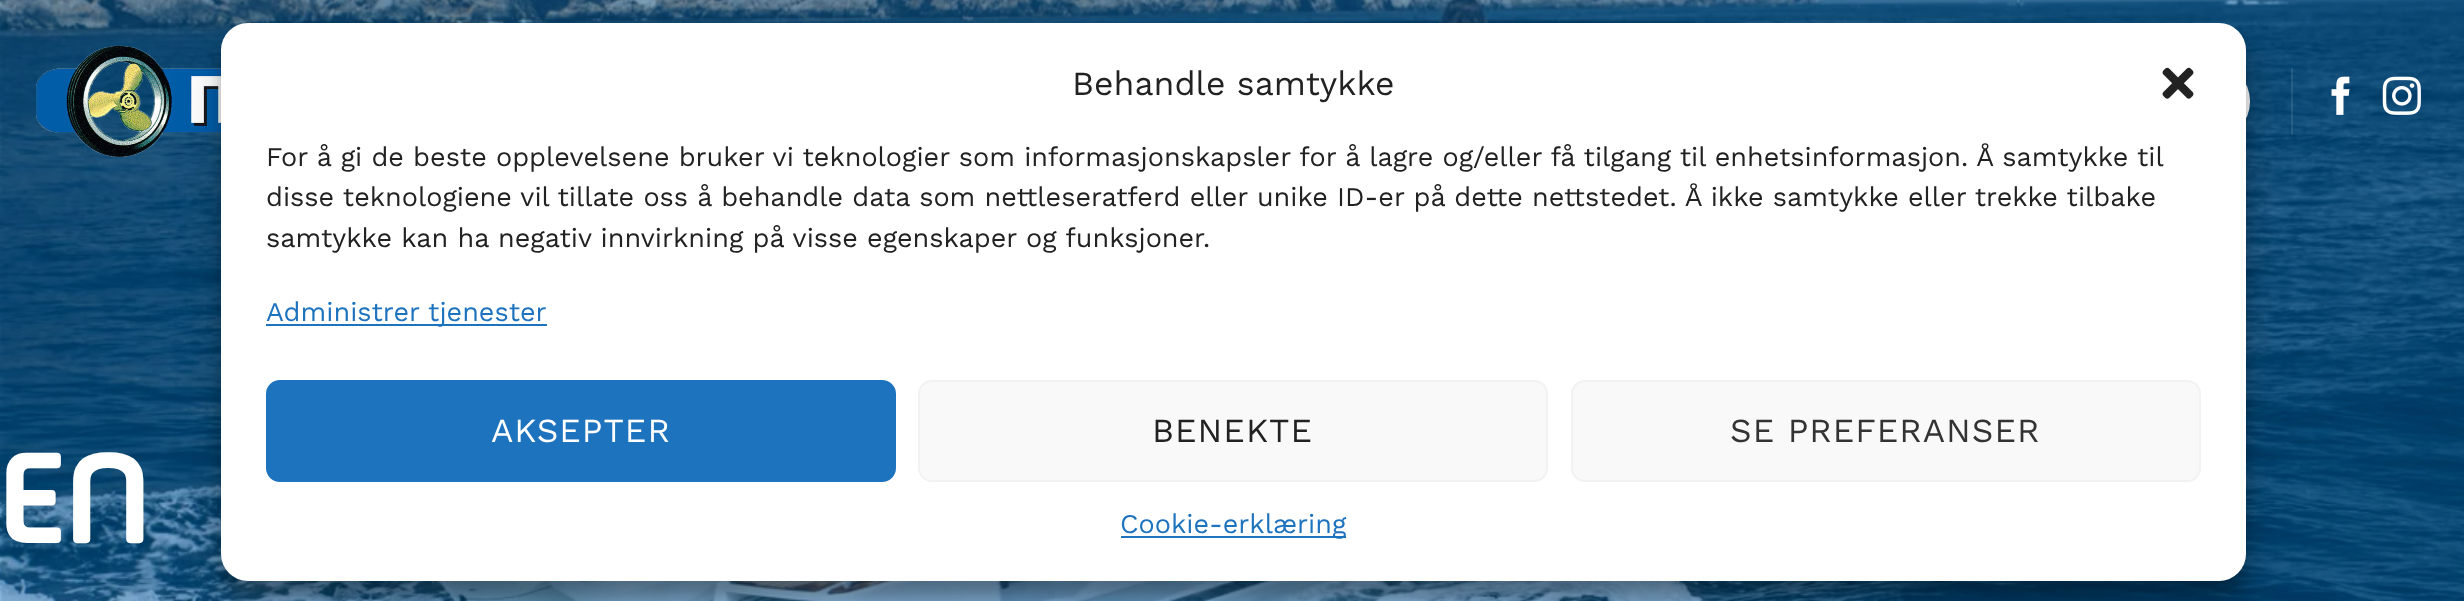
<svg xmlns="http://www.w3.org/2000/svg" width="2464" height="601">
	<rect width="100%" height="100%" fill="#FFFFFF" />
	<image x="0" y="0" width="2464" height="601" href="assets/img4.png" />
	<image x="36" y="45" width="185" height="112" href="assets/img1.png" />
	<rect x="1946.5" y="65.5" width="301" height="72" rx="36" fill="none" stroke="#FFFFFF" stroke-width="5" />
	<rect x="2291" y="68" width="2" height="67" fill="#FFFFFF" fill-opacity="0.1" />
	<image x="2331" y="76" width="19" height="39" href="assets/img2.png" />
	<image x="2382" y="76" width="39" height="39" href="assets/img3.png" />
	<text x="0" y="543" font-family="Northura" font-size="139" font-weight="700" letter-spacing="7" fill="#FFFFFF">EN</text>
	<rect x="221" y="36" width="2025" height="558" rx="27" fill="#000000" fill-opacity="0.23" filter="blur(7px)" />
	<rect x="221" y="45" width="2025" height="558" rx="27" fill="#000000" fill-opacity="0.19" filter="blur(22.5px)" />
	<rect x="221" y="23" width="2025" height="558" rx="27" fill="#FFFFFF" />
	<text x="1072" y="95" font-family="Work Sans" font-size="33.75" fill="#222222">Behandle samtykke</text>
	<image x="2162" y="67" width="32" height="32" href="assets/img5.png" />
	<g font-family="Work Sans" font-size="27" fill="#222222">
		<text x="266" y="166">For å gi de beste opplevelsene bruker vi teknologier som informasjonskapsler for å lagre og/eller få tilgang til enhetsinformasjon. Å samtykke til</text>
		<text x="266" y="206">disse teknologiene vil tillate oss å behandle data som nettleseratferd eller unike ID-er på dette nettstedet. Å ikke samtykke eller trekke tilbake</text>
		<text x="266" y="247">samtykke kan ha negativ innvirkning på visse egenskaper og funksjoner.</text>
	</g>
	<rect x="266" y="324" width="281" height="2" fill="#1E73BE" />
	<text x="266" y="321" font-family="Work Sans" font-size="27" fill="#1E73BE">Administrer tjenester</text>
	<rect x="267" y="381" width="628" height="100" rx="13" fill="#1E73BE" stroke="#1E73BE" stroke-width="2" />
	<text x="491" y="442" font-family="Work Sans" font-size="33.75" letter-spacing="1" fill="#FFFFFF">AKSEPTER</text>
	<rect x="919" y="381" width="628" height="100" rx="13" fill="#F9F9F9" stroke="#F2F2F2" stroke-width="2" />
	<text x="1152" y="442" font-family="Work Sans" font-size="33.75" letter-spacing="1" fill="#222222">BENEKTE</text>
	<rect x="1572" y="381" width="628" height="100" rx="13" fill="#F9F9F9" stroke="#F2F2F2" stroke-width="2" />
	<text x="1730" y="442" font-family="Work Sans" font-size="33.75" letter-spacing="1" fill="#333333">SE PREFERANSER</text>
	<rect x="1121" y="536" width="225" height="2" fill="#1E73BE" />
	<text x="1120" y="533" font-family="Work Sans" font-size="27" fill="#1E73BE">Cookie-erklæring</text>
</svg>
